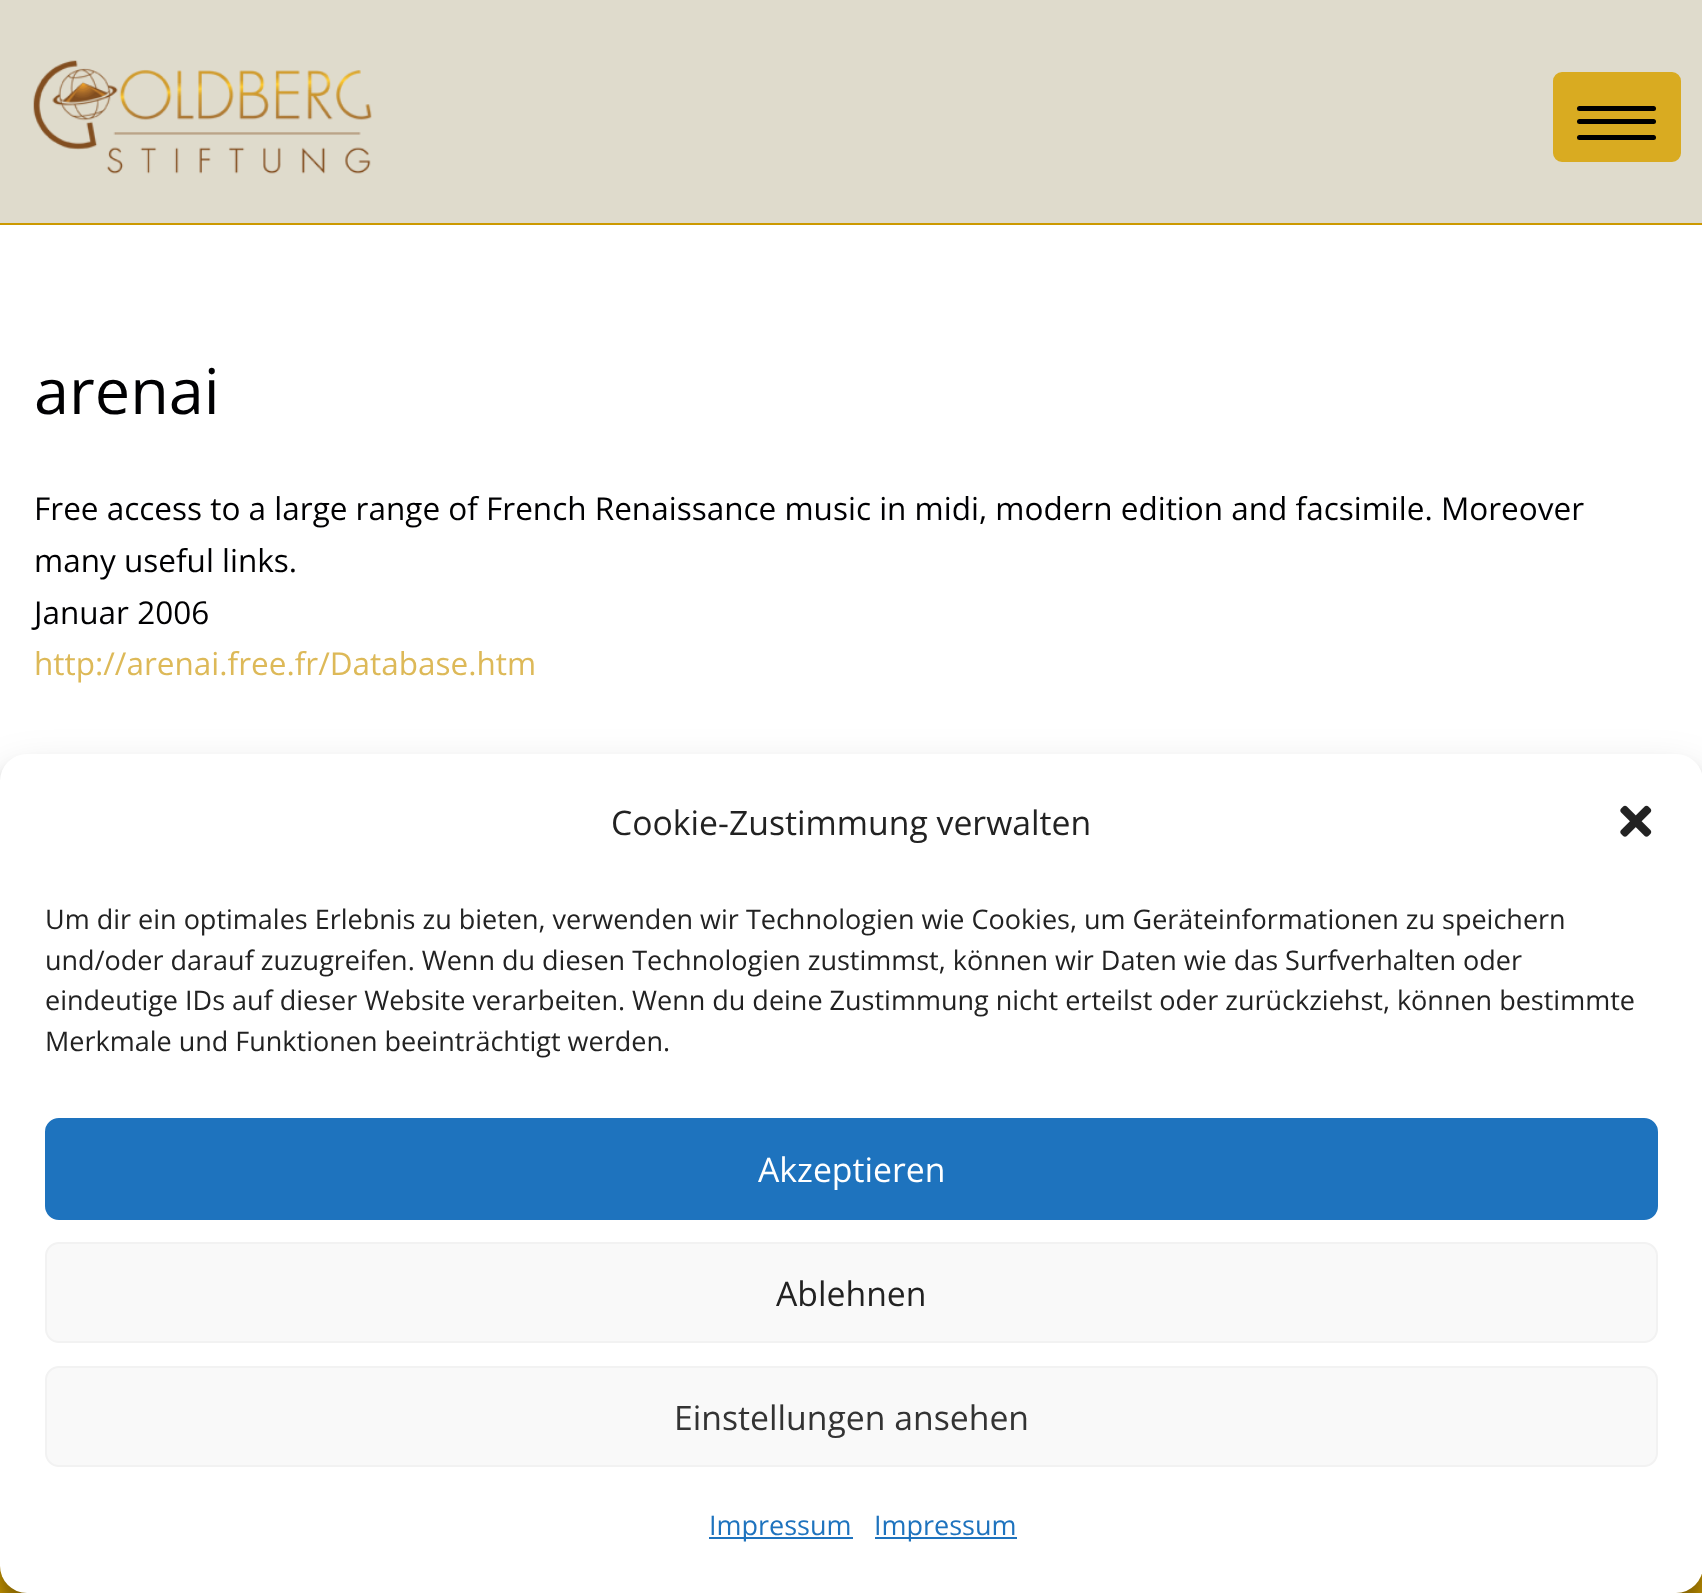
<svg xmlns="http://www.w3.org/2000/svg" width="1702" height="1593">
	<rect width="100%" height="100%" fill="#FFFFFF" />
	<rect x="0" y="0" width="1702" height="223" fill="#DFDBCC" />
	<image x="33" y="60" width="339" height="114" href="assets/img1.png" />
	<rect x="0" y="223" width="1702" height="2" fill="#CC9900" />
	<rect x="1554" y="73" width="126" height="88" rx="8" fill="#D9AB21" stroke="#D9AB21" stroke-width="2" />
	<rect x="1577" y="106" width="79" height="5" rx="2.5" fill="#000000" />
	<rect x="1577" y="119" width="79" height="5" rx="2.5" fill="#000000" />
	<rect x="1577" y="135" width="79" height="5" rx="2.5" fill="#000000" />
	<text x="34" y="414" font-family="Open Sans" font-size="63" fill="#000002">arenai</text>
	<g font-family="Open Sans" font-size="31.5" fill="#000002">
		<text x="34" y="520">Free access to a large range of French Renaissance music in midi, modern edition and facsimile. Moreover</text>
		<text x="34" y="572">many useful links.</text>
		<text x="34" y="624">Januar 2006</text>
	</g>
	<text x="34" y="675" font-family="Open Sans" font-size="31.5" fill="#DDB958">http://arenai.free.fr/Database.htm</text>
	<rect x="0" y="1566" width="1702" height="27" fill="#CC9900" />
	<rect x="0" y="767" width="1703" height="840" rx="27" fill="#000000" fill-opacity="0.23" filter="blur(7px)" />
	<rect x="0" y="776" width="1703" height="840" rx="27" fill="#000000" fill-opacity="0.19" filter="blur(22.5px)" />
	<rect x="0" y="754" width="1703" height="839" rx="27" fill="#FFFFFF" />
	<text x="611" y="835" font-family="Open Sans" font-size="33.75" fill="#222222">Cookie-Zustimmung verwalten</text>
	<image x="1620" y="805" width="32" height="32" href="assets/img2.png" />
	<g font-family="Open Sans" font-size="27" fill="#222222">
		<text x="45" y="929">Um dir ein optimales Erlebnis zu bieten, verwenden wir Technologien wie Cookies, um Geräteinformationen zu speichern</text>
		<text x="45" y="970">und/oder darauf zuzugreifen. Wenn du diesen Technologien zustimmst, können wir Daten wie das Surfverhalten oder</text>
		<text x="45" y="1010">eindeutige IDs auf dieser Website verarbeiten. Wenn du deine Zustimmung nicht erteilst oder zurückziehst, können bestimmte</text>
		<text x="45" y="1051">Merkmale und Funktionen beeinträchtigt werden.</text>
	</g>
	<rect x="46" y="1119" width="1611" height="100" rx="13" fill="#1E73BE" stroke="#1E73BE" stroke-width="2" />
	<text x="758" y="1182" font-family="Open Sans" font-size="33.75" fill="#FFFFFF">Akzeptieren</text>
	<rect x="46" y="1243" width="1611" height="99" rx="13" fill="#F9F9F9" stroke="#F2F2F2" stroke-width="2" />
	<text x="776" y="1306" font-family="Open Sans" font-size="33.75" fill="#222222">Ablehnen</text>
	<rect x="46" y="1367" width="1611" height="99" rx="13" fill="#F9F9F9" stroke="#F2F2F2" stroke-width="2" />
	<text x="674" y="1430" font-family="Open Sans" font-size="33.75" fill="#333333">Einstellungen ansehen</text>
	<rect x="709" y="1537" width="144" height="2" fill="#1E73BE" />
	<text x="709" y="1535" font-family="Open Sans" font-size="27" fill="#1E73BE">Impressum</text>
	<rect x="875" y="1537" width="142" height="2" fill="#1E73BE" />
	<text x="874" y="1535" font-family="Open Sans" font-size="27" fill="#1E73BE">Impressum</text>
</svg>
